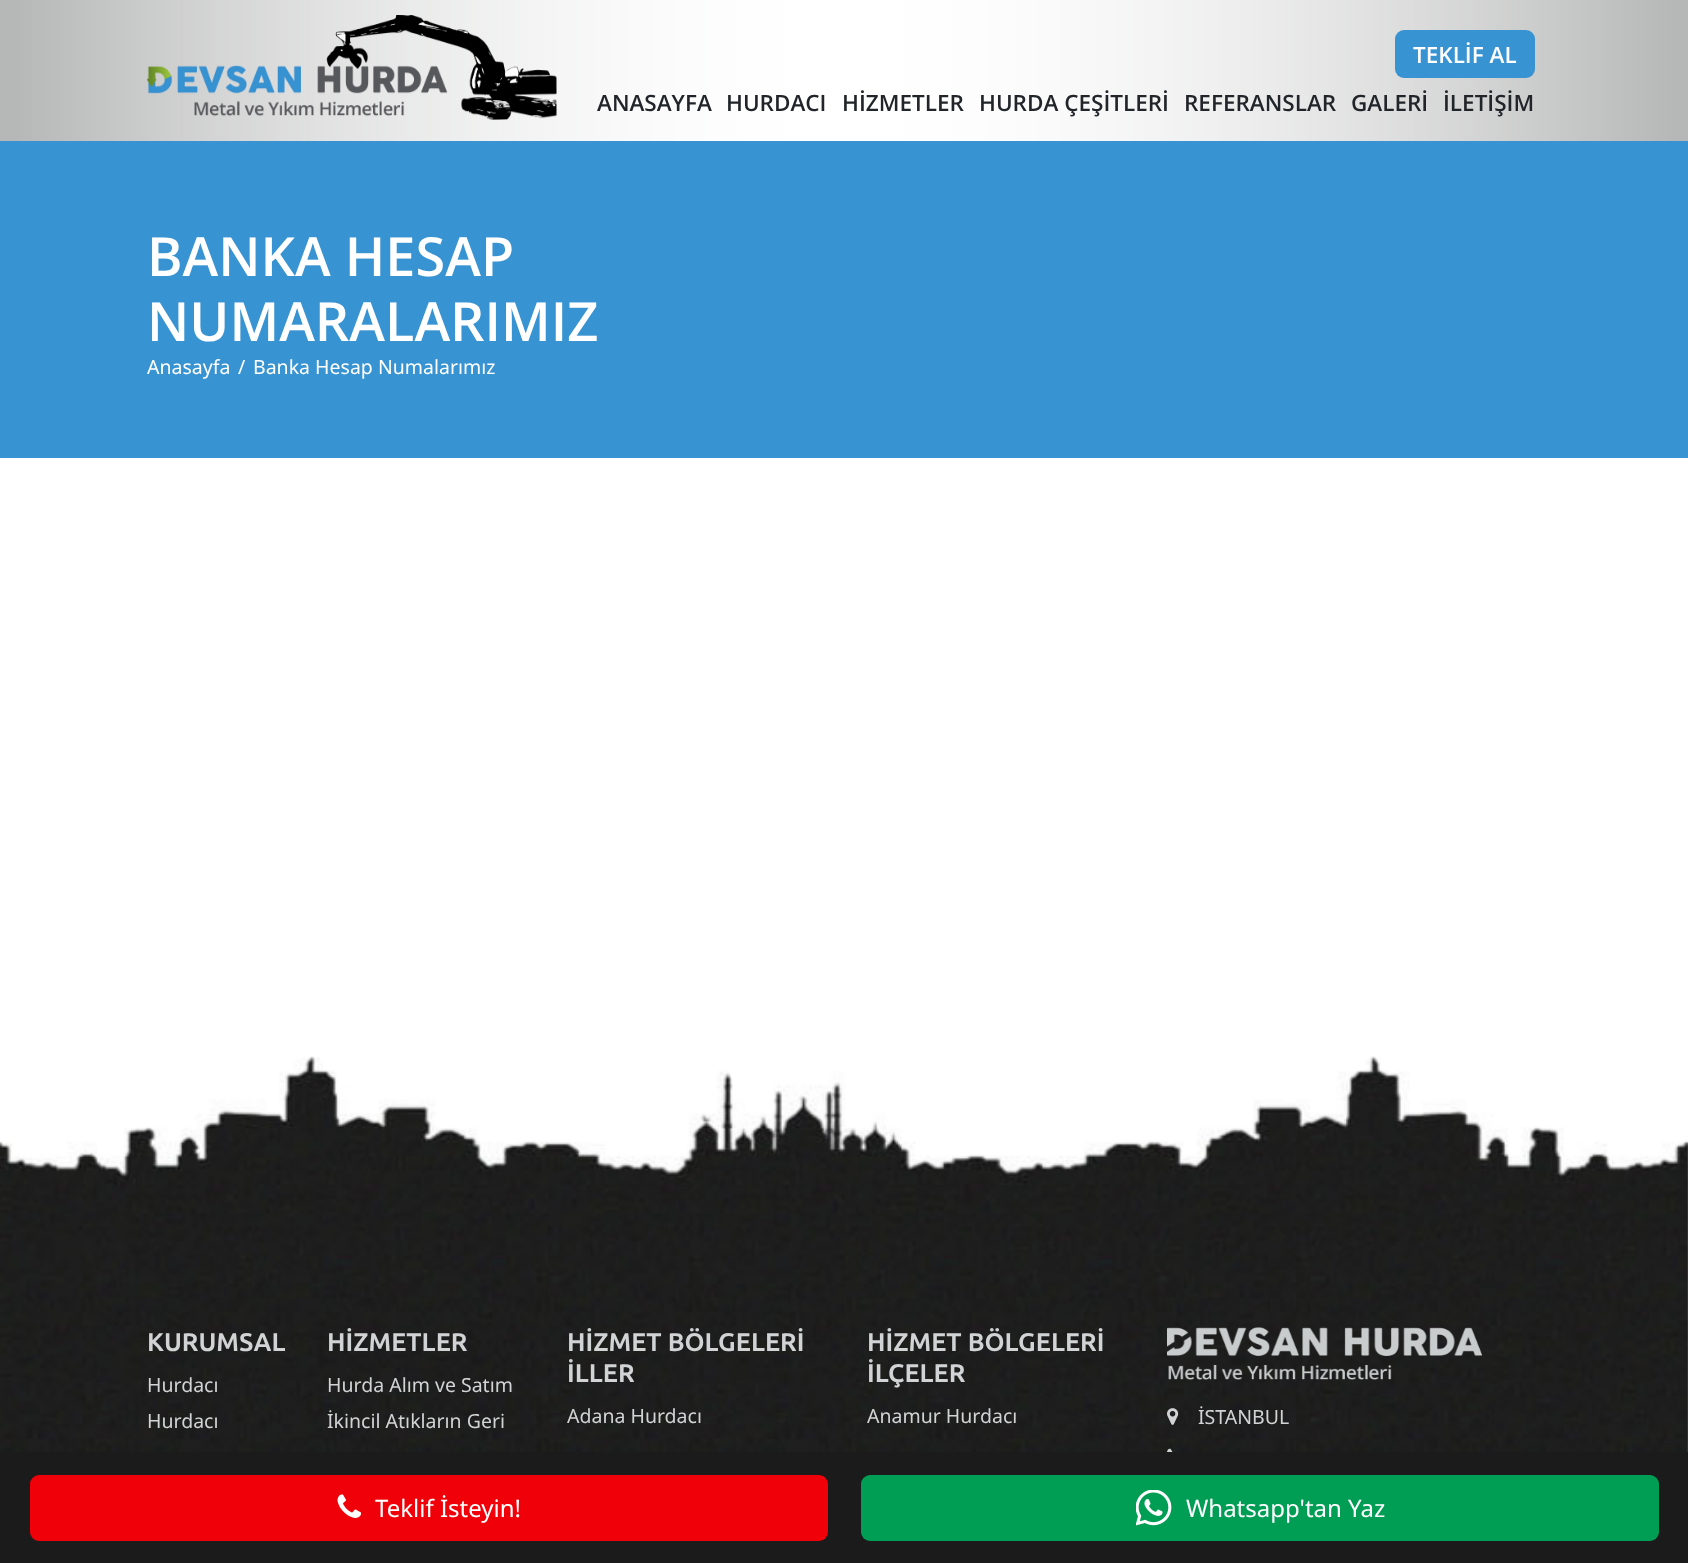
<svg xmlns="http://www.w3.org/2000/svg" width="1688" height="1563">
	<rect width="100%" height="100%" fill="#FFFFFF" />
	<image x="0" y="0" width="1688" height="141" href="assets/img1.png" />
	<rect x="0" y="141" width="1688" height="317" fill="#3793D1" />
	<image x="147" y="15" width="410" height="105" href="assets/img2.png" />
	<rect x="1395" y="30" width="140" height="48" rx="9" fill="#3793D1" />
	<text x="1413" y="63" font-family="Open Sans" font-size="22.5" font-weight="600" fill="#FFFFFF">TEKLİF AL</text>
	<g font-family="Open Sans" font-size="22.5" font-weight="600" fill="#212529">
		<text x="597" y="111">ANASAYFA</text>
		<text x="726" y="111">HURDACI</text>
		<text x="842" y="111">HİZMETLER</text>
		<text x="979" y="111">HURDA ÇEŞİTLERİ</text>
		<text x="1184" y="111">REFERANSLAR</text>
		<text x="1351" y="111">GALERİ</text>
		<text x="1443" y="111">İLETİŞİM</text>
	</g>
	<g font-family="Open Sans" font-size="54" font-weight="600" fill="#FFFFFF">
		<text x="147" y="276">BANKA HESAP</text>
		<text x="147" y="341">NUMARALARIMIZ</text>
	</g>
	<g font-family="Noto Sans" font-size="19.5" fill="#FFFFFF">
		<text x="147" y="374">Anasayfa</text>
		<text x="238" y="374">/</text>
		<text x="253" y="374">Banka Hesap Numalarımız</text>
	</g>
	<image x="0" y="1056" width="1688" height="396" href="assets/img3.png" />
	<text x="147" y="1351" font-family="Ubuntu" font-size="25.5" font-weight="700" fill="#D1D3D4">KURUMSAL</text>
	<g font-family="Noto Sans" font-size="19.5" fill="#D1D3D4">
		<text x="147" y="1392">Hurdacı</text>
		<text x="147" y="1428">Hurdacı</text>
	</g>
	<text x="327" y="1351" font-family="Ubuntu" font-size="25.5" font-weight="700" fill="#D1D3D4">HİZMETLER</text>
	<g font-family="Noto Sans" font-size="19.5" fill="#D1D3D4">
		<text x="327" y="1392">Hurda Alım ve Satım</text>
		<text x="327" y="1428">İkincil Atıkların Geri</text>
	</g>
	<g font-family="Ubuntu" font-size="25.5" font-weight="700" fill="#D1D3D4">
		<text x="567" y="1351">HİZMET BÖLGELERİ</text>
		<text x="567" y="1382">İLLER</text>
	</g>
	<text x="567" y="1423" font-family="Noto Sans" font-size="19.5" fill="#D1D3D4">Adana Hurdacı</text>
	<g font-family="Ubuntu" font-size="25.5" font-weight="700" fill="#D1D3D4">
		<text x="867" y="1351">HİZMET BÖLGELERİ</text>
		<text x="867" y="1382">İLÇELER</text>
	</g>
	<text x="867" y="1423" font-family="Noto Sans" font-size="19.5" fill="#D1D3D4">Anamur Hurdacı</text>
	<image x="1167" y="1327" width="315" height="53" href="assets/img4.png" />
	<image x="1167" y="1408" width="12" height="17" href="assets/img5.png" />
	<text x="1198" y="1424" font-family="Noto Sans" font-size="19.5" fill="#D1D3D4">İSTANBUL</text>
	<image x="1167" y="1448" width="6" height="4" href="assets/img6.png" />
	<rect x="0" y="1452" width="1688" height="111" fill="#1B1B1B" />
	<rect x="30" y="1475" width="798" height="66" rx="9" fill="#F00008" />
	<image x="337" y="1494" width="24" height="24" href="assets/img7.png" />
	<text x="375" y="1517" font-family="Noto Sans" font-size="24" fill="#FFFFFF">Teklif İsteyin!</text>
	<rect x="861" y="1475" width="798" height="66" rx="9" fill="#009E54" />
	<image x="1136" y="1490" width="36" height="36" href="assets/img8.png" />
	<text x="1186" y="1517" font-family="Noto Sans" font-size="24" fill="#FFFFFF">Whatsapp'tan Yaz</text>
</svg>
